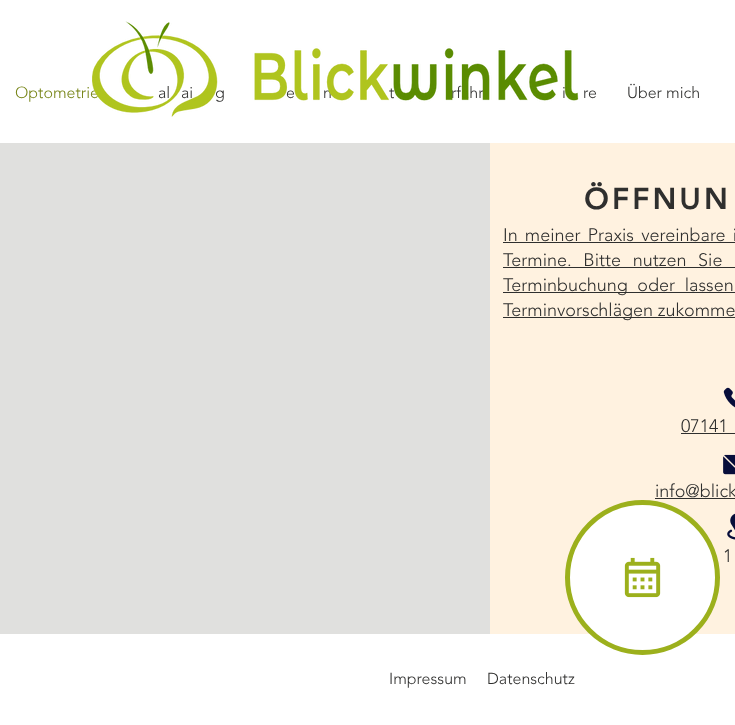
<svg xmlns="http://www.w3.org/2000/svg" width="735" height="725">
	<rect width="100%" height="100%" fill="#FFFFFF" />
	<text x="15" y="98" font-family="'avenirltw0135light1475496'" font-size="16" font-weight="300" fill="#758314">Optometrie</text>
	<g font-family="'avenirltw0135light1475496'" font-size="16" font-weight="300" fill="#2F2F2E">
		<text x="158" y="98">al</text>
		<text x="181" y="98">ai</text>
		<text x="215" y="98">g</text>
		<text x="286" y="98">e</text>
		<text x="323" y="98">n</text>
		<text x="389" y="98">t</text>
		<text x="451" y="98">rfahr</text>
		<text x="562" y="98">i</text>
	</g>
	<image x="92" y="21" width="487" height="96" href="assets/img1.png" />
	<g font-family="'avenirltw0135light1475496'" font-size="16" font-weight="300" fill="#2F2F2E">
		<text x="583" y="98">re</text>
		<text x="627" y="98">Über mich</text>
	</g>
	<rect x="0" y="143" width="490" height="491" fill="#E0E0DE" />
	<rect x="490" y="143" width="245" height="491" fill="#FFF2E0" />
	<text x="584" y="209" font-family="'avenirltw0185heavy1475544'" font-size="30" font-weight="900" letter-spacing="3" fill="#2F2F2E">ÖFFNUN</text>
	<text x="503" y="241" word-spacing="2.5" font-family="'avenirltw0135light1475496'" font-size="18" font-weight="300" fill="#2F2F2E">In meiner Praxis vereinbare i</text>
	<rect x="503" y="242" width="232" height="1" fill="#2F2F2E" />
	<text x="503" y="266" word-spacing="7" font-family="'avenirltw0135light1475496'" font-size="18" font-weight="300" fill="#2F2F2E">Termine. Bitte nutzen Sie</text>
	<rect x="503" y="267" width="232" height="1" fill="#2F2F2E" />
	<rect x="503" y="292" width="232" height="1" fill="#2F2F2E" />
	<text x="503" y="291" word-spacing="5" font-family="'avenirltw0135light1475496'" font-size="18" font-weight="300" fill="#2F2F2E">Terminbuchung oder lassen</text>
	<rect x="503" y="317" width="232" height="1" fill="#2F2F2E" />
	<text x="503" y="316" font-family="'avenirltw0135light1475496'" font-size="18" font-weight="300" fill="#2F2F2E">Terminvorschlägen zukomme</text>
	<image x="723" y="387" width="12" height="21" href="assets/img2.png" />
	<text x="681" y="432" font-family="'avenirltw0135light1475496'" font-size="18" font-weight="300" fill="#2F2F2E">07141</text>
	<rect x="681" y="433" width="54" height="1" fill="#2F2F2E" />
	<image x="723" y="454" width="12" height="21" href="assets/img3.png" />
	<text x="655" y="497" font-family="'avenirltw0135light1475496'" font-size="18" font-weight="300" fill="#2F2F2E">info@blick</text>
	<rect x="655" y="498" width="80" height="1" fill="#2F2F2E" />
	<image x="727" y="513" width="8" height="27" href="assets/img4.png" />
	<text x="723" y="562" font-family="'avenirltw0135light1475496'" font-size="18" font-weight="300" fill="#2F2F2E">1</text>
	<circle cx="642.5" cy="577.5" r="75" fill="#FFFFFF" stroke="#9CB01C" stroke-width="5" />
	<image x="624" y="557" width="37" height="41" href="assets/img5.png" />
	<g font-family="'avenirltw0135light1475496'" font-size="16" font-weight="300" fill="#2F2F2E">
		<text x="389" y="684">Impressum</text>
		<text x="487" y="684">Datenschutz</text>
	</g>
</svg>
